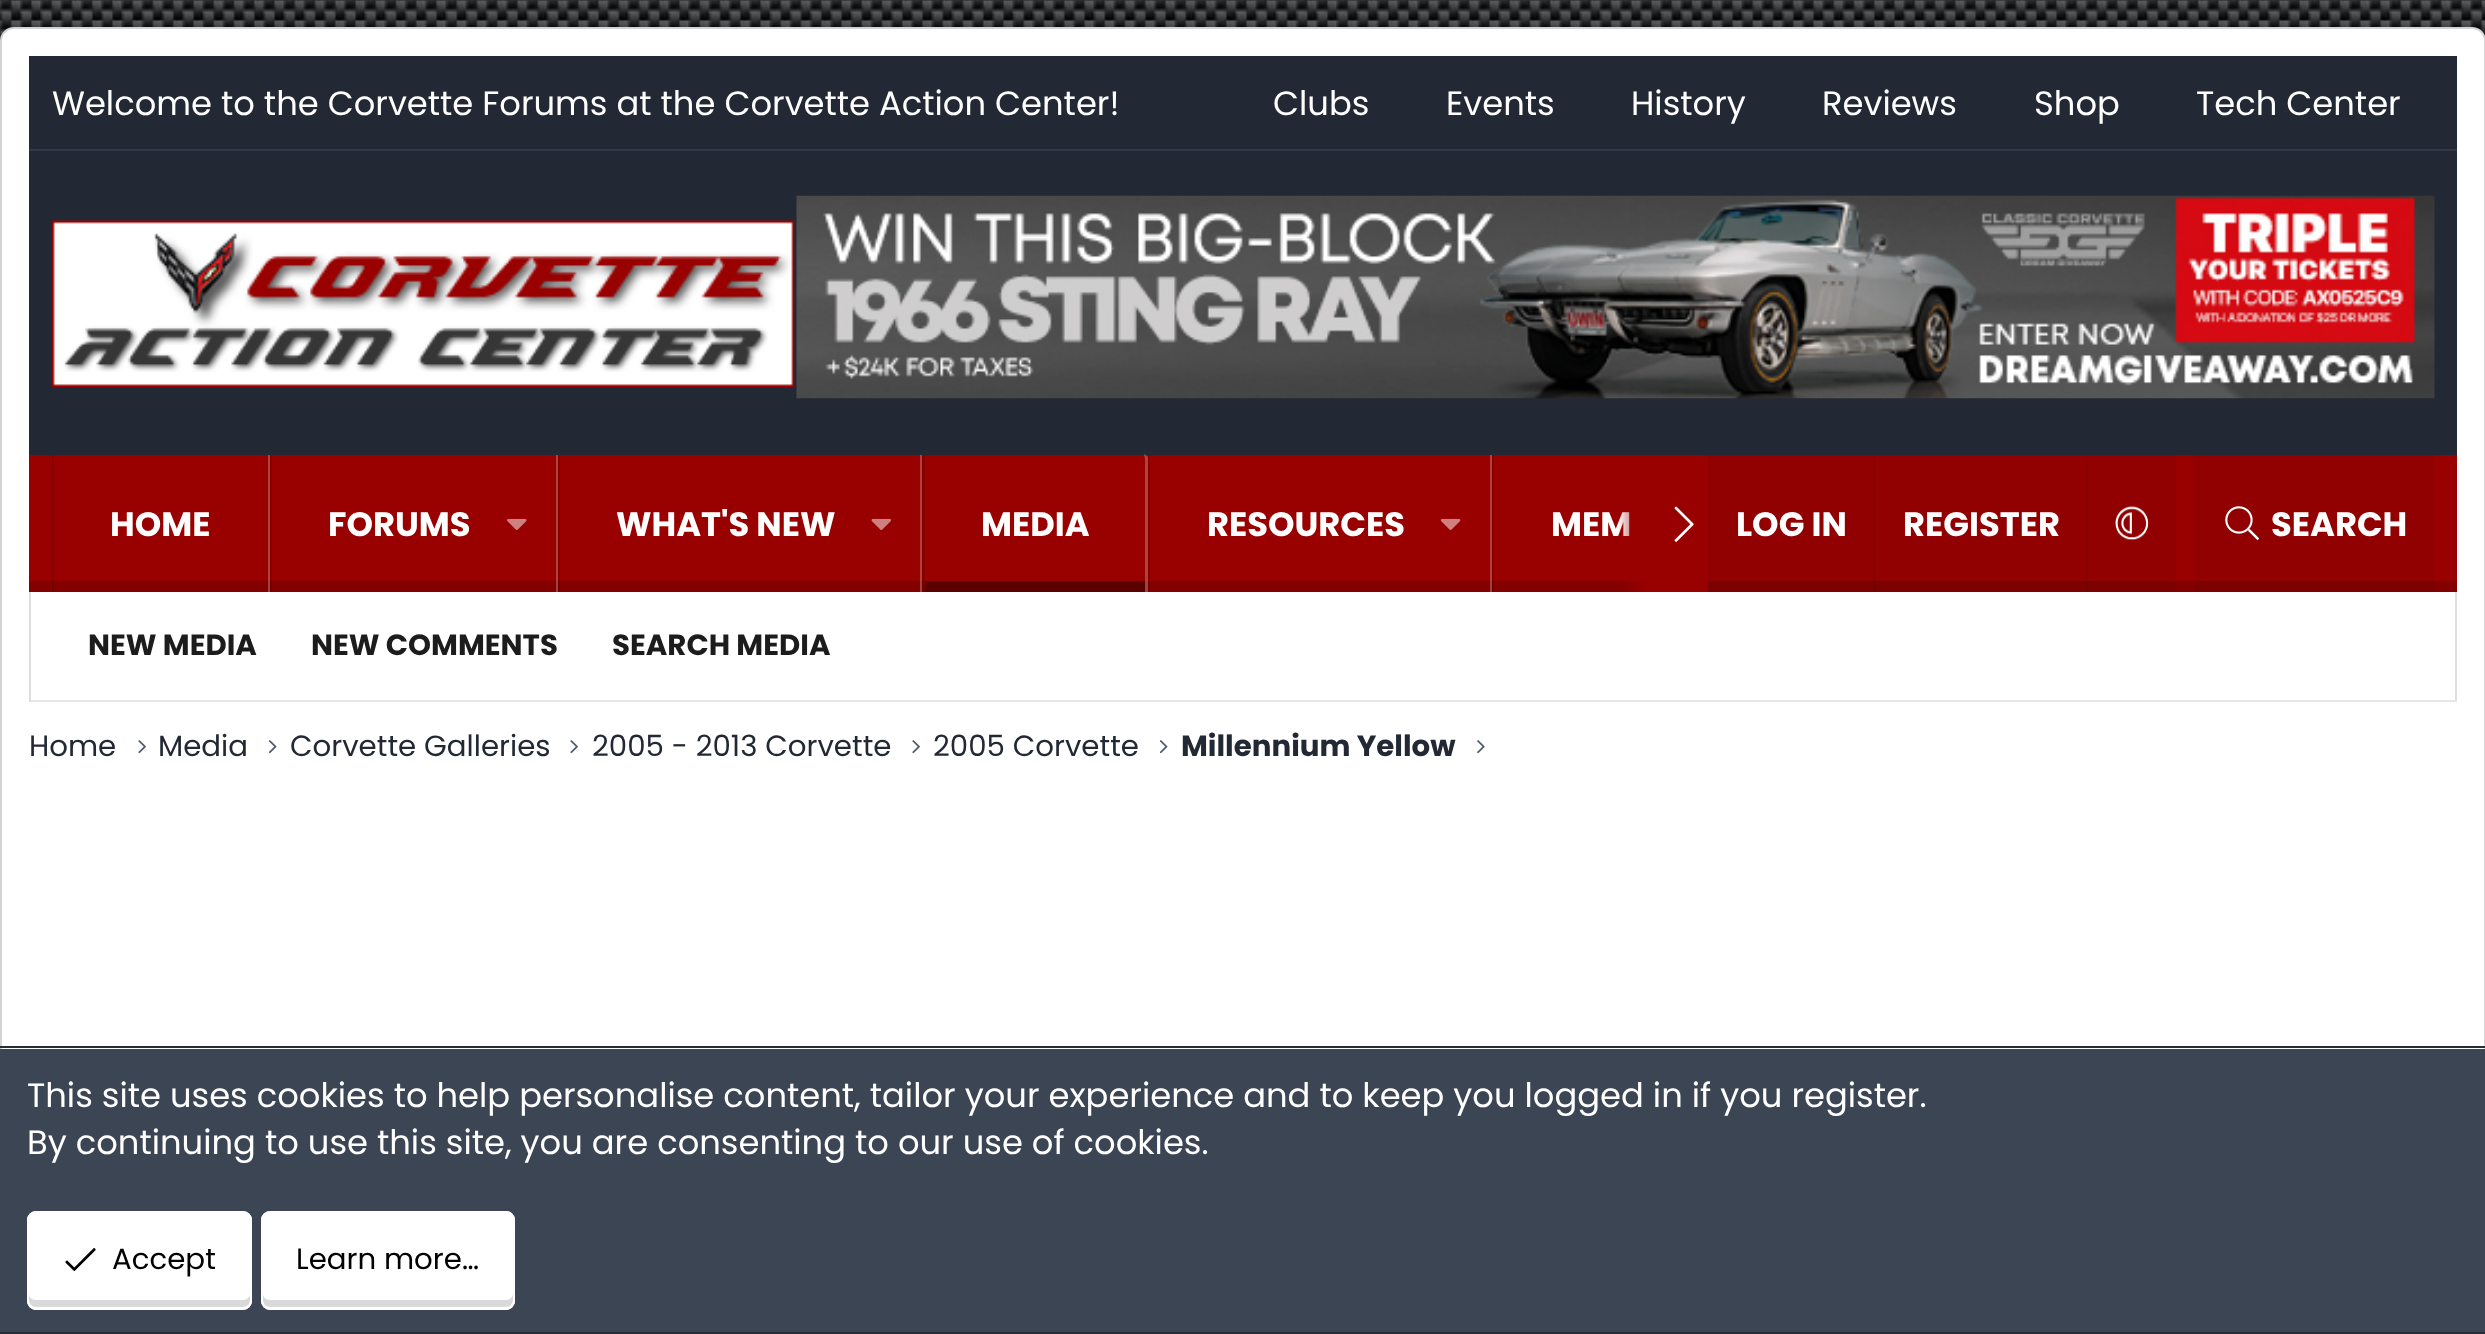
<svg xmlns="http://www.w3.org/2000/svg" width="2485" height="1334">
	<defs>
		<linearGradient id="g1" gradientUnits="userSpaceOnUse" x1="1618" y1="523" x2="1708" y2="523"><stop offset="0" stop-color="#990000" stop-opacity="0" /><stop offset="0.33" stop-color="#990000" /></linearGradient>
	</defs>
	<rect width="100%" height="100%" fill="#FFFFFF" />
	<image x="0" y="0" width="2485" height="41" href="assets/img1.png" />
	<rect x="1" y="28" width="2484" height="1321" rx="13" fill="#FFFFFF" stroke="#D4D4D4" stroke-width="2" />
	<rect x="29" y="56" width="2428" height="93" fill="#232934" />
	<rect x="29" y="149" width="2428" height="2" fill="#323A49" />
	<g font-family="Poppins" font-size="33.75" fill="#FFFFFF">
		<text x="52" y="115">Welcome to the Corvette Forums at the Corvette Action Center!</text>
		<text x="1273" y="115">Clubs</text>
		<text x="1446" y="115">Events</text>
		<text x="1631" y="115">History</text>
		<text x="1822" y="115">Reviews</text>
		<text x="2034" y="115">Shop</text>
		<text x="2196" y="115">Tech Center</text>
	</g>
	<rect x="29" y="151" width="2428" height="304" fill="#232934" />
	<image x="51" y="220" width="744" height="167" href="assets/img2.png" />
	<image x="796" y="195" width="1639" height="204" href="assets/img3.png" />
	<rect x="29" y="455" width="2428" height="126" fill="#990000" />
	<rect x="29" y="581" width="2428" height="11" fill="#820000" />
	<rect x="268" y="455" width="2" height="137" fill="#FFFFFF" fill-opacity="0.25" />
	<rect x="52" y="455" width="2" height="137" fill="#000000" fill-opacity="0.12" />
	<text x="110" y="536" font-family="Poppins" font-size="33.75" font-weight="700" fill="#FFFFFF">HOME</text>
	<rect x="556" y="455" width="2" height="137" fill="#FFFFFF" fill-opacity="0.25" />
	<rect x="270" y="455" width="2" height="137" fill="#000000" fill-opacity="0.12" />
	<text x="328" y="536" font-family="Poppins" font-size="33.75" font-weight="700" fill="#FFFFFF">FORUMS</text>
	<image x="507" y="518" width="20" height="12" href="assets/img4.png" />
	<rect x="920" y="455" width="2" height="137" fill="#FFFFFF" fill-opacity="0.25" />
	<rect x="558" y="455" width="2" height="137" fill="#000000" fill-opacity="0.12" />
	<text x="616" y="536" font-family="Poppins" font-size="33.75" font-weight="700" fill="#FFFFFF">WHAT'S NEW</text>
	<image x="871" y="518" width="20" height="12" href="assets/img5.png" />
	<path d="M1145 592V459C1145 458 1144 455 1144 454C1145 454 1147 456 1148 457V592Z" fill="#FFFFFF" fill-opacity="0.25" />
	<path d="M922 592V457C923 456 925 454 926 454C926 455 925 458 925 459V592Z" fill="#000000" fill-opacity="0.12" />
	<rect x="925" y="581" width="220" height="11" fill="#5B0000" />
	<text x="981" y="536" font-family="Poppins" font-size="33.75" font-weight="700" fill="#FFFFFF">MEDIA</text>
	<rect x="1490" y="455" width="2" height="137" fill="#FFFFFF" fill-opacity="0.25" />
	<rect x="1148" y="455" width="2" height="137" fill="#000000" fill-opacity="0.12" />
	<text x="1207" y="536" font-family="Poppins" font-size="33.75" font-weight="700" fill="#FFFFFF">RESOURCES</text>
	<image x="1440" y="518" width="21" height="12" href="assets/img6.png" />
	<rect x="1492" y="455" width="2" height="137" fill="#000000" fill-opacity="0.12" />
	<text x="1551" y="536" font-family="Poppins" font-size="33.75" font-weight="700" fill="#FFFFFF">MEM</text>
	<rect x="1619" y="512" width="89" height="80" fill="url(#g1)" />
	<image x="1674" y="506" width="20" height="36" href="assets/img7.png" />
	<rect x="1708" y="455" width="468" height="137" fill="#1C1C1C" fill-opacity="0.05" />
	<text x="1736" y="536" font-family="Poppins" font-size="33.75" font-weight="700" fill="#FFFFFF">LOG IN</text>
	<rect x="1874" y="455" width="2" height="137" fill="#1C1C1C" fill-opacity="0.05" />
	<text x="1903" y="536" font-family="Poppins" font-size="33.75" font-weight="700" fill="#FFFFFF">REGISTER</text>
	<rect x="2086" y="455" width="2" height="137" fill="#1C1C1C" fill-opacity="0.05" />
	<image x="2115" y="506" width="34" height="35" href="assets/img8.png" />
	<rect x="2194" y="455" width="241" height="137" fill="#1C1C1C" fill-opacity="0.05" />
	<image x="2225" y="506" width="34" height="34" href="assets/img9.png" />
	<text x="2271" y="536" font-family="Poppins" font-size="33.75" font-weight="700" fill="#FFFFFF">SEARCH</text>
	<rect x="2455" y="592" width="2" height="110" fill="#DEDEDE" />
	<rect x="29" y="700" width="2428" height="2" fill="#E6E6E6" />
	<rect x="29" y="592" width="2" height="110" fill="#DEDEDE" />
	<g font-family="Poppins" font-size="29.25" font-weight="700" fill="#1C1C1C">
		<text x="88" y="655">NEW MEDIA</text>
		<text x="311" y="655">NEW COMMENTS</text>
		<text x="612" y="655">SEARCH MEDIA</text>
	</g>
	<text x="29" y="756" font-family="Poppins" font-size="29.25" fill="#232934">Home</text>
	<image x="138" y="740" width="8" height="14" href="assets/img10.png" />
	<text x="158" y="756" font-family="Poppins" font-size="29.25" fill="#232934">Media</text>
	<image x="268" y="740" width="9" height="14" href="assets/img11.png" />
	<text x="290" y="756" font-family="Poppins" font-size="29.25" fill="#232934">Corvette Galleries</text>
	<image x="570" y="740" width="8" height="14" href="assets/img10.png" />
	<text x="592" y="756" font-family="Poppins" font-size="29.25" fill="#232934">2005 - 2013 Corvette</text>
	<image x="912" y="740" width="8" height="14" href="assets/img10.png" />
	<text x="933" y="756" font-family="Poppins" font-size="29.25" fill="#232934">2005 Corvette</text>
	<image x="1159" y="740" width="9" height="14" href="assets/img11.png" />
	<text x="1181" y="756" font-family="Poppins" font-size="29.25" font-weight="700" fill="#232934">Millennium Yellow</text>
	<image x="1477" y="740" width="8" height="14" href="assets/img12.png" />
	<rect x="0" y="1049" width="2485" height="283" fill="#3C4553" />
	<rect x="0" y="1046" width="2485" height="2" fill="#272C35" />
	<rect x="0" y="1332" width="2485" height="2" fill="#272C35" />
	<g font-family="Poppins" font-size="33.75" fill="#FFFFFF">
		<text x="27" y="1107">This site uses cookies to help personalise content, tailor your experience and to keep you logged in if you register.</text>
		<text x="27" y="1154">By continuing to use this site, you are consenting to our use of cookies.</text>
	</g>
	<rect x="27" y="1211" width="225" height="99" rx="9" fill="#FFFFFF" />
	<path d="M29 1294V1300C29 1304 32 1307 36 1307H243C247 1307 250 1304 250 1300V1294C250 1297 247 1300 243 1300H36C32 1300 29 1297 29 1294Z" fill="#D9D9D9" />
	<rect x="28" y="1212" width="223" height="97" rx="8" fill="none" stroke="#FFFFFF" stroke-width="2" />
	<image x="65" y="1248" width="31" height="23" href="assets/img13.png" />
	<text x="112" y="1269" font-family="Poppins" font-size="29.25" fill="#000000">Accept</text>
	<rect x="261" y="1211" width="254" height="99" rx="9" fill="#FFFFFF" />
	<path d="M263 1294V1300C263 1304 266 1307 270 1307H506C510 1307 513 1304 513 1300V1294C513 1297 510 1300 506 1300H270C266 1300 263 1297 263 1294Z" fill="#D9D9D9" />
	<rect x="262" y="1212" width="252" height="97" rx="8" fill="none" stroke="#FFFFFF" stroke-width="2" />
	<text x="296" y="1269" font-family="Poppins" font-size="29.25" fill="#000000">Learn more…</text>
</svg>
